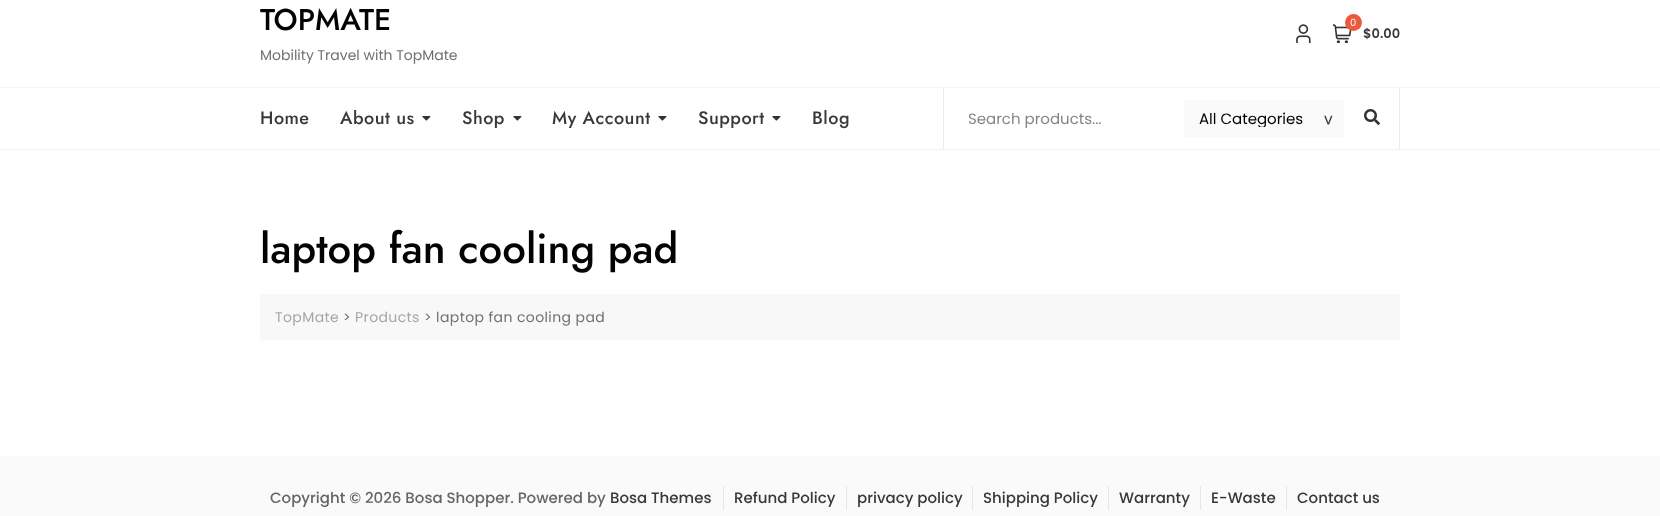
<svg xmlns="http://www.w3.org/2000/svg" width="1660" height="516">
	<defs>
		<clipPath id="clip1"><rect x="1199" y="110" width="130" height="17" /></clipPath>
	</defs>
	<rect width="100%" height="100%" fill="#FFFFFF" />
	<rect x="0" y="87" width="1660" height="1" fill="#F5F5F5" />
	<text x="260" y="30" font-family="Jost" font-size="30" font-weight="500" fill="#030303">TOPMATE</text>
	<text x="260" y="60" font-family="Poppins" font-size="14" fill="#717171">Mobility Travel with TopMate</text>
	<image x="1296" y="24" width="15" height="19" href="assets/img1.png" />
	<image x="1333" y="24" width="19" height="19" href="assets/img2.png" />
	<circle cx="1353.5" cy="22.5" r="8.5" fill="#EB5A3E" />
	<text x="1350" y="26" font-family="Poppins" font-size="10" fill="#FFFFFF">0</text>
	<text x="1363" y="38" font-family="Poppins" font-size="13" font-weight="600" fill="#383838">$0.00</text>
	<g font-family="Jost" font-size="18" font-weight="500" letter-spacing="0.5" fill="#383838">
		<text x="260" y="124">Home</text>
		<text x="340" y="124">About us</text>
	</g>
	<image x="422" y="116" width="9" height="5" href="assets/img3.png" />
	<text x="462" y="124" font-family="Jost" font-size="18" font-weight="500" letter-spacing="0.5" fill="#383838">Shop</text>
	<image x="513" y="116" width="9" height="5" href="assets/img3.png" />
	<text x="552" y="124" font-family="Jost" font-size="18" font-weight="500" letter-spacing="0.5" fill="#383838">My Account</text>
	<image x="658" y="116" width="9" height="5" href="assets/img3.png" />
	<text x="698" y="124" font-family="Jost" font-size="18" font-weight="500" letter-spacing="0.5" fill="#383838">Support</text>
	<image x="772" y="116" width="9" height="5" href="assets/img3.png" />
	<text x="812" y="124" font-family="Jost" font-size="18" font-weight="500" letter-spacing="0.5" fill="#383838">Blog</text>
	<rect x="1399" y="88" width="1" height="61" fill="#EBEBEB" />
	<rect x="943" y="88" width="1" height="61" fill="#EBEBEB" />
	<text x="968" y="124" font-family="Poppins" font-size="15" fill="#858585">Search products...</text>
	<rect x="1184" y="100" width="160" height="37" fill="#FAFAFA" />
	<g clip-path="url(#clip1)">
		<text x="1199" y="124" font-family="Poppins" font-size="15" fill="#030303">All Categories</text>
	</g>
	<text x="1323" y="115" transform="rotate(90 1323 115)" font-family="DejaVu Sans Mono" font-size="17" fill="#383838">&gt;</text>
	<image x="1364" y="109" width="16" height="16" href="assets/img4.png" />
	<rect x="0" y="149" width="1660" height="1" fill="#F2F2F2" />
	<text x="260" y="263" font-family="Jost" font-size="42" font-weight="500" fill="#030303">laptop fan cooling pad</text>
	<rect x="260" y="294" width="1140" height="46" fill="#F8F8F8" />
	<text x="275" y="322" font-family="Poppins" font-size="14" letter-spacing="0.4" fill="#A6A6A6">TopMate</text>
	<text x="343" y="322" font-family="Poppins" font-size="14" letter-spacing="0.4" fill="#717171">&gt;</text>
	<text x="355" y="322" font-family="Poppins" font-size="14" letter-spacing="0.4" fill="#A6A6A6">Products</text>
	<text x="424" y="322" font-family="Poppins" font-size="14" letter-spacing="0.4" fill="#717171">&gt; laptop fan cooling pad</text>
	<rect x="0" y="456" width="1660" height="60" fill="#FAFAFA" />
	<text x="270" y="503" font-family="Poppins" font-size="15" font-weight="500" fill="#656565">Copyright © 2026 Bosa Shopper. Powered by</text>
	<text x="610" y="503" font-family="Poppins" font-size="15" font-weight="500" fill="#383838">Bosa Themes</text>
	<rect x="723" y="486" width="1" height="24" fill="#E6E6E6" />
	<text x="734" y="503" font-family="Poppins" font-size="15" font-weight="500" fill="#383838">Refund Policy</text>
	<rect x="846" y="486" width="1" height="24" fill="#E6E6E6" />
	<text x="857" y="503" font-family="Poppins" font-size="15" font-weight="500" fill="#383838">privacy policy</text>
	<rect x="972" y="486" width="1" height="24" fill="#E6E6E6" />
	<text x="983" y="503" font-family="Poppins" font-size="15" font-weight="500" fill="#383838">Shipping Policy</text>
	<rect x="1108" y="486" width="1" height="24" fill="#E6E6E6" />
	<text x="1119" y="503" font-family="Poppins" font-size="15" font-weight="500" fill="#383838">Warranty</text>
	<rect x="1200" y="486" width="1" height="24" fill="#E6E6E6" />
	<text x="1211" y="503" font-family="Poppins" font-size="15" font-weight="500" fill="#383838">E-Waste</text>
	<rect x="1286" y="486" width="1" height="24" fill="#E6E6E6" />
	<text x="1297" y="503" font-family="Poppins" font-size="15" font-weight="500" fill="#383838">Contact us</text>
</svg>
